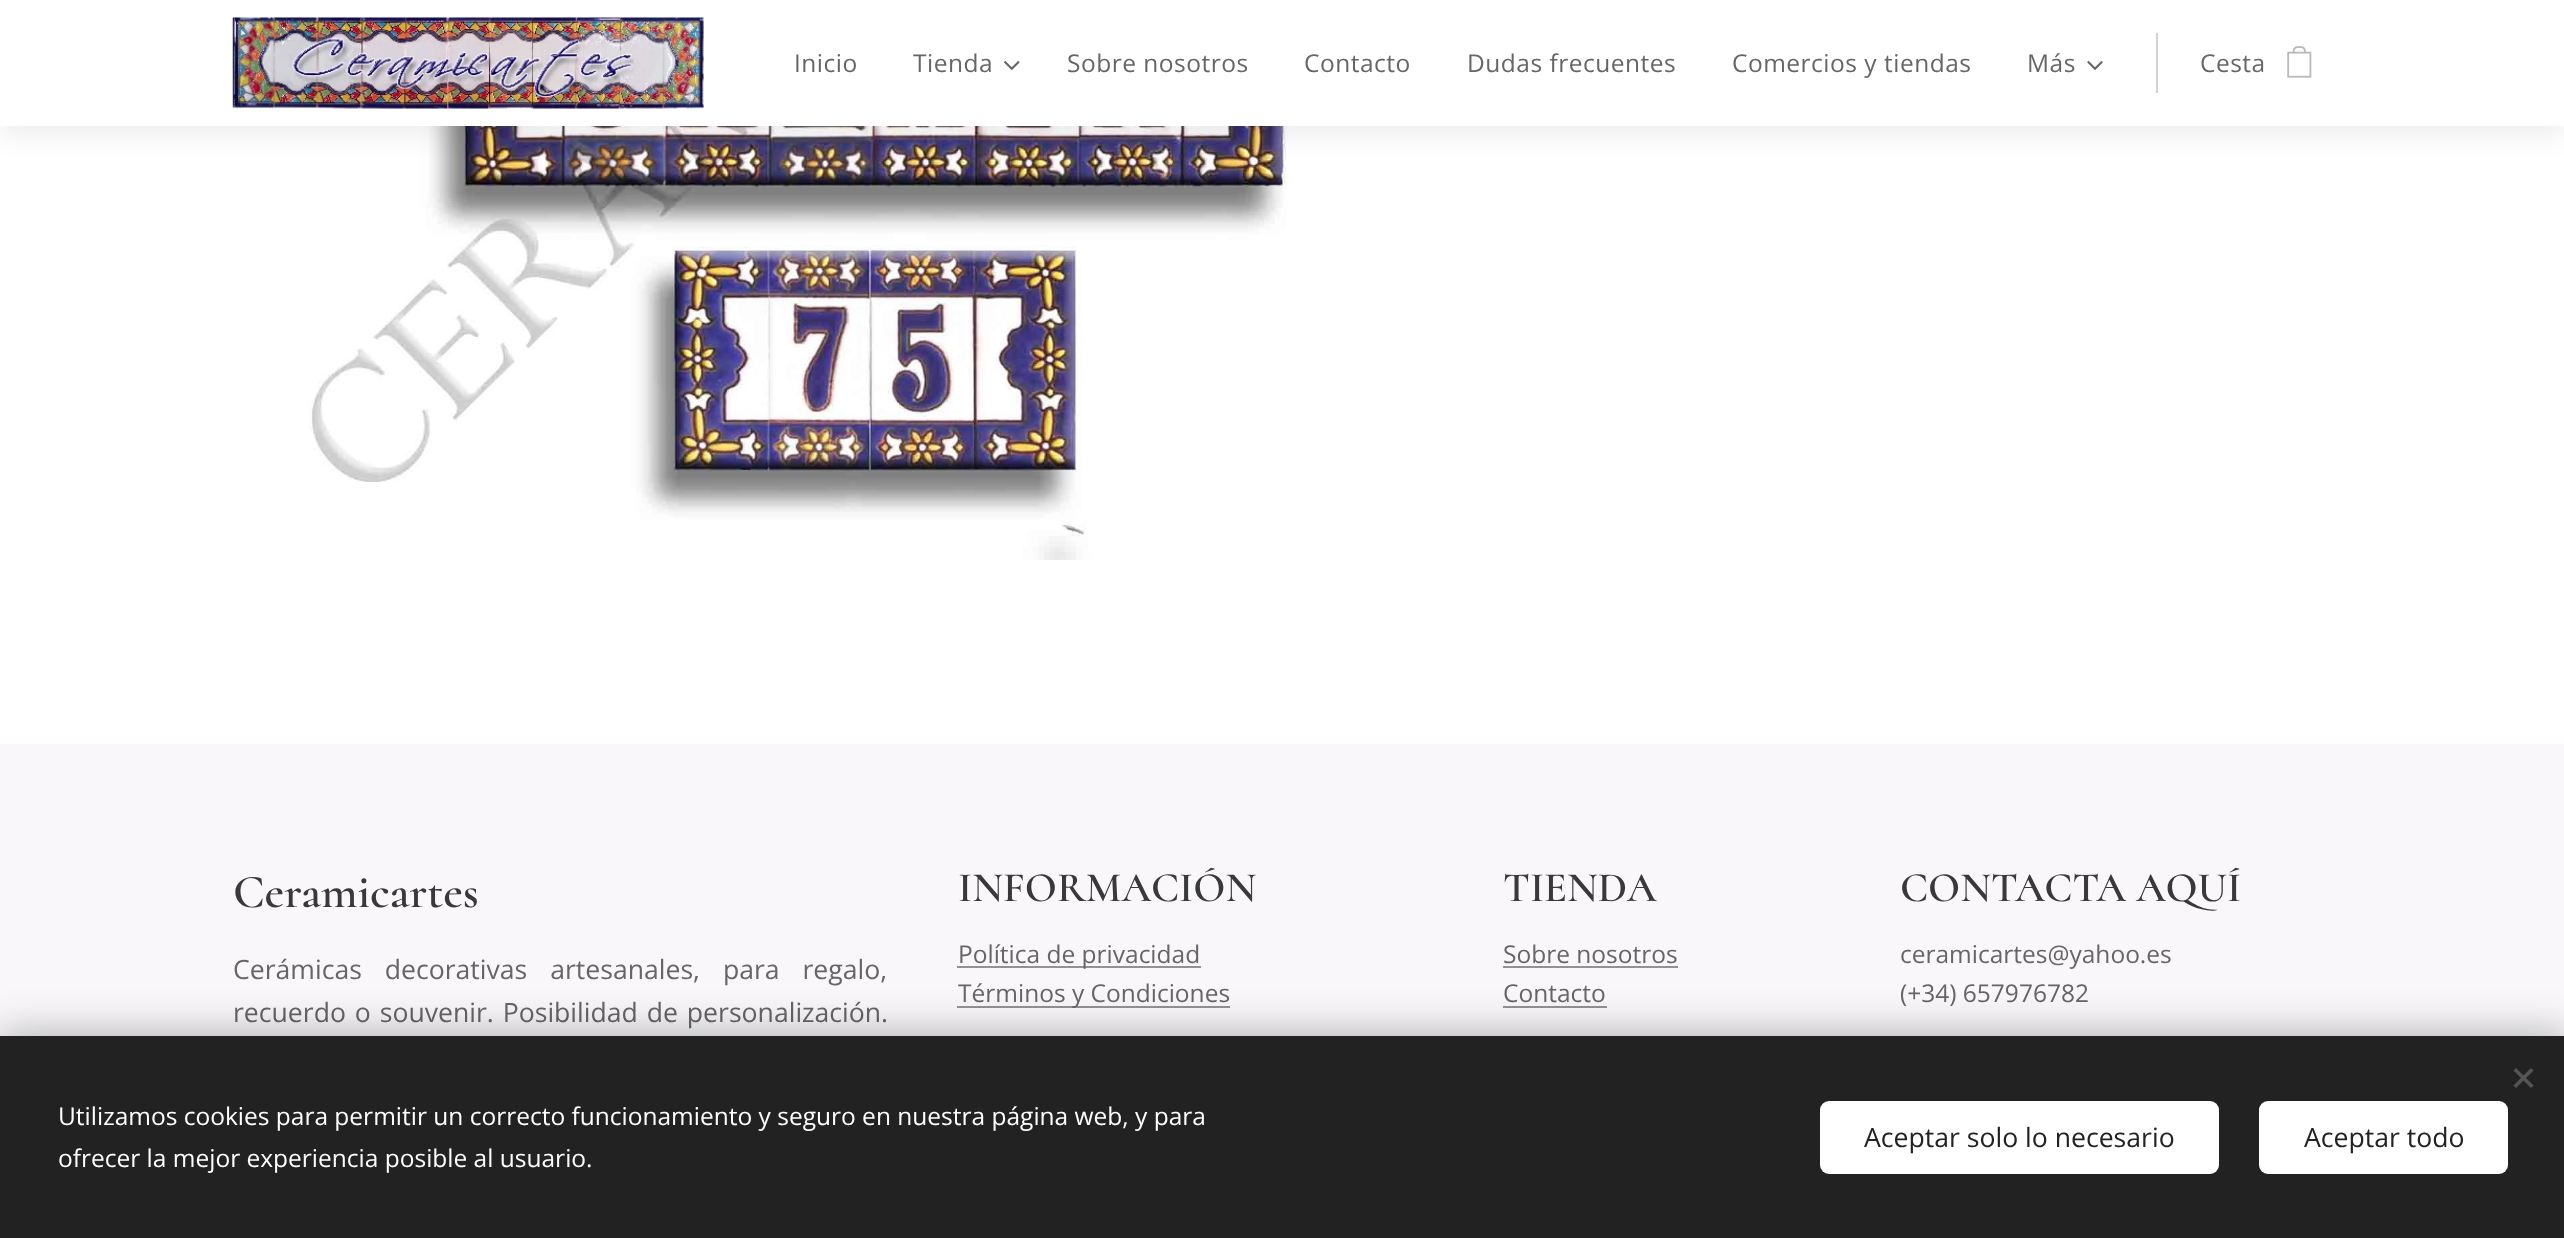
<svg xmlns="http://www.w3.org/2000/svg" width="2564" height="1238">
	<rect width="100%" height="100%" fill="#FFFFFF" />
	<image x="309" y="126" width="978" height="434" href="assets/img5.png" />
	<rect x="0" y="9" width="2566" height="126" fill="#000000" fill-opacity="0.07" filter="blur(13px)" />
	<rect x="0" y="0" width="2564" height="126" fill="#FFFFFF" />
	<image x="232" y="17" width="472" height="92" href="assets/img1.png" />
	<g font-family="Open Sans" font-size="24.5" letter-spacing="0.5" fill="#666666">
		<text x="794" y="72">Inicio</text>
		<text x="913" y="72">Tienda</text>
	</g>
	<image x="1004" y="61" width="16" height="9" href="assets/img2.png" />
	<g font-family="Open Sans" font-size="24.5" letter-spacing="0.5" fill="#666666">
		<text x="1067" y="72">Sobre nosotros</text>
		<text x="1304" y="72">Contacto</text>
		<text x="1467" y="72">Dudas frecuentes</text>
		<text x="1732" y="72">Comercios y tiendas</text>
		<text x="2027" y="72">Más</text>
	</g>
	<image x="2087" y="61" width="16" height="9" href="assets/img3.png" />
	<rect x="2156" y="33" width="2" height="60" fill="#D1D1D1" />
	<text x="2200" y="72" font-family="Open Sans" font-size="24.5" letter-spacing="0.5" fill="#666666">Cesta</text>
	<image x="2287" y="46" width="25" height="32" href="assets/img4.png" />
	<rect x="0" y="744" width="2564" height="292" fill="#F9F7FA" />
	<text x="233" y="907" font-family="Cormorant" font-size="47.25" font-weight="600" fill="#393939">Ceramicartes</text>
	<g font-family="Open Sans" font-size="26.6" fill="#666666">
		<text x="233" y="979" word-spacing="16">Cerámicas decorativas artesanales, para regalo,</text>
		<text x="233" y="1022" word-spacing="2">recuerdo o souvenir. Posibilidad de personalización.</text>
	</g>
	<text x="958" y="901" font-family="Cormorant" font-size="42" font-weight="600" fill="#393939">INFORMACIÓN</text>
	<rect x="957" y="966" width="244" height="2" fill="#929292" />
	<text x="958" y="963" font-family="Open Sans" font-size="24.5" fill="#666666">Política de privacidad</text>
	<rect x="957" y="1006" width="273" height="2" fill="#929292" />
	<text x="958" y="1002" font-family="Open Sans" font-size="24.5" fill="#666666">Términos y Condiciones</text>
	<text x="1503" y="901" font-family="Cormorant" font-size="42" font-weight="600" fill="#393939">TIENDA</text>
	<text x="1503" y="963" font-family="Open Sans" font-size="24.5" fill="#666666">Sobre nosotros</text>
	<rect x="1503" y="966" width="175" height="2" fill="#929292" />
	<text x="1503" y="1002" font-family="Open Sans" font-size="24.5" fill="#666666">Contacto</text>
	<rect x="1503" y="1006" width="104" height="2" fill="#929292" />
	<text x="1900" y="901" font-family="Cormorant" font-size="42" font-weight="600" fill="#393939">CONTACTA AQUÍ</text>
	<g font-family="Open Sans" font-size="24.5" fill="#666666">
		<text x="1900" y="963">ceramicartes@yahoo.es</text>
		<text x="1900" y="1002">(+34) 657976782</text>
	</g>
	<rect x="0" y="1036" width="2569" height="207" fill="#000000" fill-opacity="0.33" filter="blur(22px)" />
	<rect x="0" y="1036" width="2564" height="202" fill="#222222" />
	<path d="M2513.5 1085.5L2531 1068L2533.5 1070.5L2516 1088Z" fill="#555555" />
	<path d="M2516 1068L2533.5 1085.5L2531 1088L2513.5 1070.5Z" fill="#555555" />
	<g font-family="Open Sans" font-size="24.5" fill="#FFFFFF">
		<text x="58" y="1125">Utilizamos cookies para permitir un correcto funcionamiento y seguro en nuestra página web, y para</text>
		<text x="58" y="1167">ofrecer la mejor experiencia posible al usuario.</text>
	</g>
	<rect x="1820" y="1101" width="399" height="73" rx="9" fill="#FFFFFF" />
	<text x="1864" y="1147" font-family="Open Sans" font-size="26.6" fill="#222222">Aceptar solo lo necesario</text>
	<rect x="2259" y="1101" width="249" height="73" rx="9" fill="#FFFFFF" />
	<text x="2304" y="1147" font-family="Open Sans" font-size="26.6" fill="#222222">Aceptar todo</text>
</svg>
